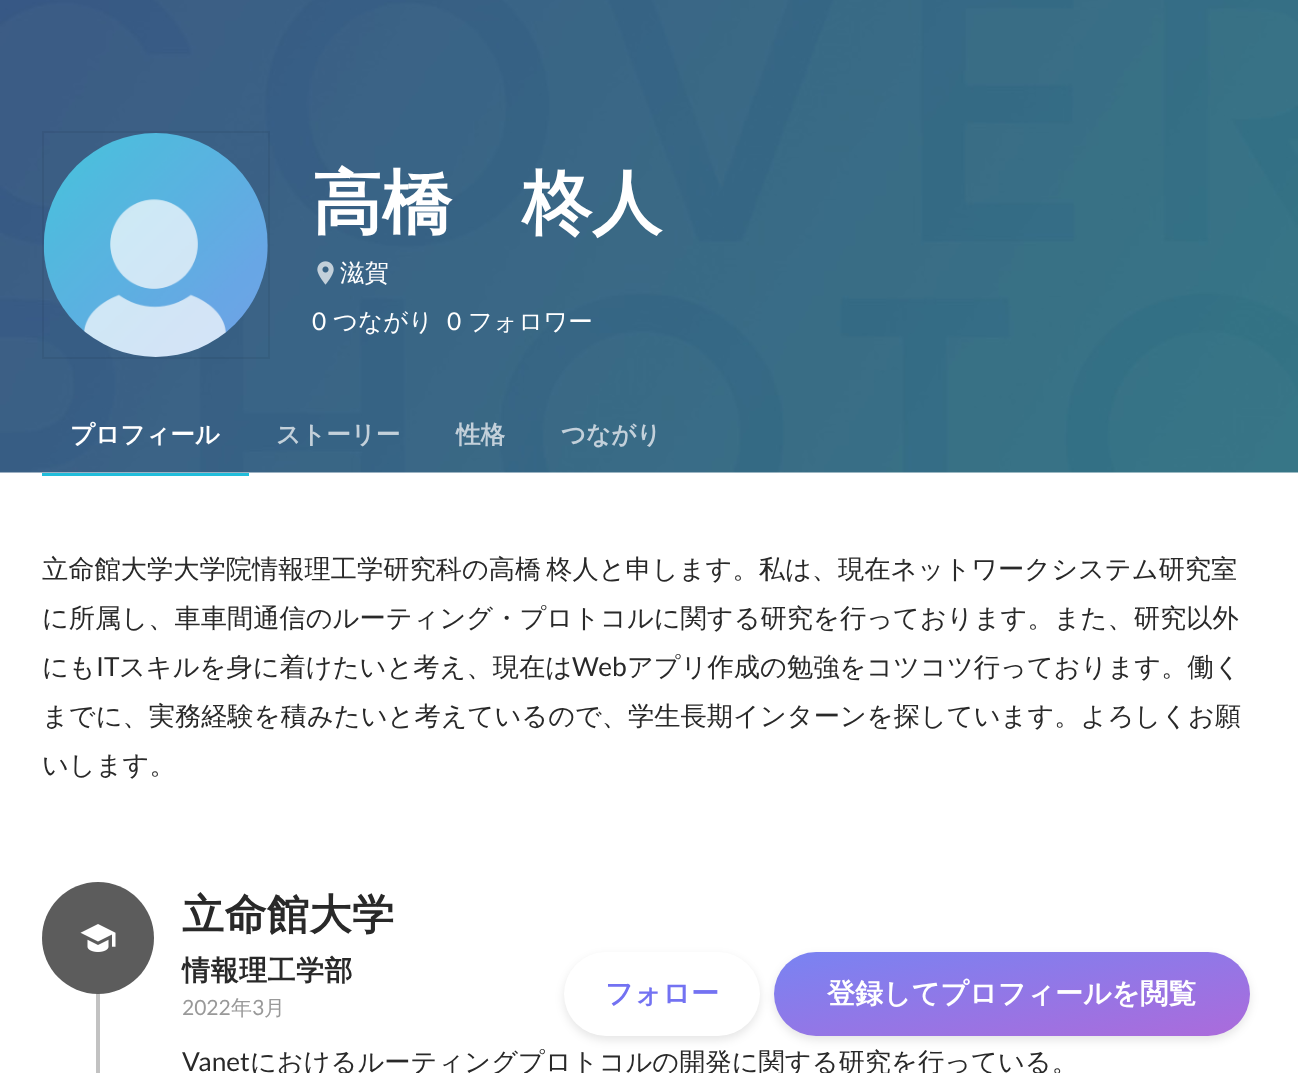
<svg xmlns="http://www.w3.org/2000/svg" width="1298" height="1073">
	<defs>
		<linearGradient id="g1" gradientUnits="userSpaceOnUse" x1="997" y1="913" x2="1026" y2="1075"><stop offset="0" stop-color="#7983F2" /><stop offset="1" stop-color="#AB6BDB" /></linearGradient>
	</defs>
	<rect width="100%" height="100%" fill="#FFFFFF" />
	<image x="0" y="0" width="1298" height="473" href="assets/img1.png" />
	<rect x="43" y="132" width="226" height="226" fill="none" stroke="#000000" stroke-opacity="0.06" stroke-width="2" />
	<image x="43" y="133" width="225" height="224" href="assets/img2.png" />
	<text x="312" y="227" font-family="WenQuanYi Zen Hei" font-size="70" font-weight="700" fill="#FFFFFF">高橋　柊人</text>
	<image x="317" y="261" width="17" height="24" href="assets/img3.png" />
	<text x="340" y="281" font-family="WenQuanYi Zen Hei" font-size="24.5" font-weight="500" fill="#FFFFFF">滋賀</text>
	<text x="312" y="330" font-family="Lato" font-size="24.5" fill="#FFFFFF">0</text>
	<text x="333" y="330" font-family="WenQuanYi Zen Hei" font-size="24.5" font-weight="500" fill="#FFFFFF">つながり</text>
	<text x="447" y="330" font-family="Lato" font-size="24.5" fill="#FFFFFF">0</text>
	<text x="468" y="330" font-family="WenQuanYi Zen Hei" font-size="24.5" font-weight="500" fill="#FFFFFF">フォロワー</text>
	<rect x="42" y="473" width="207" height="3" fill="#21BDDB" />
	<text x="70" y="443" font-family="WenQuanYi Zen Hei" font-size="24.5" font-weight="700" fill="#FFFFFF">プロフィール</text>
	<g font-family="WenQuanYi Zen Hei" font-size="24.5" font-weight="700" fill="#C3D0DA">
		<text x="276" y="443">ストーリー</text>
		<text x="456" y="443">性格</text>
		<text x="561" y="443">つながり</text>
	</g>
	<rect x="564" y="956" width="196" height="84" rx="42" fill="#000000" fill-opacity="0.1" filter="blur(5px)" />
	<rect x="564" y="952" width="196" height="84" rx="42" fill="#FFFFFF" />
	<text x="605" y="1003" font-family="WenQuanYi Zen Hei" font-size="28" font-weight="700" fill="#7372F2">フォロー</text>
	<rect x="774" y="956" width="476" height="84" rx="42" fill="#000000" fill-opacity="0.1" filter="blur(5px)" />
	<rect x="774" y="952" width="476" height="84" rx="42" fill="url(#g1)" />
	<text x="827" y="1003" font-family="WenQuanYi Zen Hei" font-size="28" font-weight="700" fill="#FFFFFF">登録してプロフィールを閲覧</text>
	<g font-family="WenQuanYi Zen Hei" font-size="26.25" font-weight="500" fill="#292929">
		<text x="42" y="578" word-spacing="-3">立命館大学大学院情報理工学研究科の高橋 柊人と申します。私は、現在ネットワークシステム研究室</text>
		<text x="42" y="627">に所属し、車車間通信のルーティング・プロトコルに関する研究を行っております。また、研究以外</text>
		<text x="42" y="676">にも</text>
	</g>
	<text x="96" y="676" font-family="Lato" font-size="26.25" fill="#292929">IT</text>
	<text x="119" y="676" font-family="WenQuanYi Zen Hei" font-size="26.25" font-weight="500" fill="#292929">スキルを身に着けたいと考え、現在は</text>
	<text x="572" y="676" font-family="Lato" font-size="26.25" fill="#292929">Web</text>
	<g font-family="WenQuanYi Zen Hei" font-size="26.25" font-weight="500" fill="#292929">
		<text x="627" y="676">アプリ作成の勉強をコツコツ行っております。働く</text>
		<text x="42" y="725">までに、実務経験を積みたいと考えているので、学生長期インターンを探しています。よろしくお願</text>
		<text x="42" y="774">いします。</text>
	</g>
	<rect x="96" y="993" width="4" height="80" fill="#C2C2C2" />
	<circle cx="98" cy="938" r="56" fill="#5C5C5C" />
	<image x="80" y="924" width="36" height="28" href="assets/img4.png" />
	<text x="182" y="929" font-family="WenQuanYi Zen Hei" font-size="42" font-weight="700" letter-spacing="0.5" fill="#292929">立命館大学</text>
	<text x="182" y="980" font-family="WenQuanYi Zen Hei" font-size="28" font-weight="700" letter-spacing="0.5" fill="#292929">情報理工学部</text>
	<text x="182" y="1015" font-family="Lato" font-size="21" fill="#999999">2022</text>
	<text x="231" y="1015" font-family="WenQuanYi Zen Hei" font-size="21" font-weight="500" fill="#999999">年</text>
	<text x="252" y="1015" font-family="Lato" font-size="21" fill="#999999">3</text>
	<text x="264" y="1015" font-family="WenQuanYi Zen Hei" font-size="21" font-weight="500" fill="#999999">月</text>
	<text x="182" y="1071" font-family="Lato" font-size="26.25" fill="#292929">Vanet</text>
	<text x="250" y="1071" font-family="WenQuanYi Zen Hei" font-size="26.25" font-weight="500" fill="#292929">におけるルーティングプロトコルの開発に関する研究を行っている。</text>
</svg>
